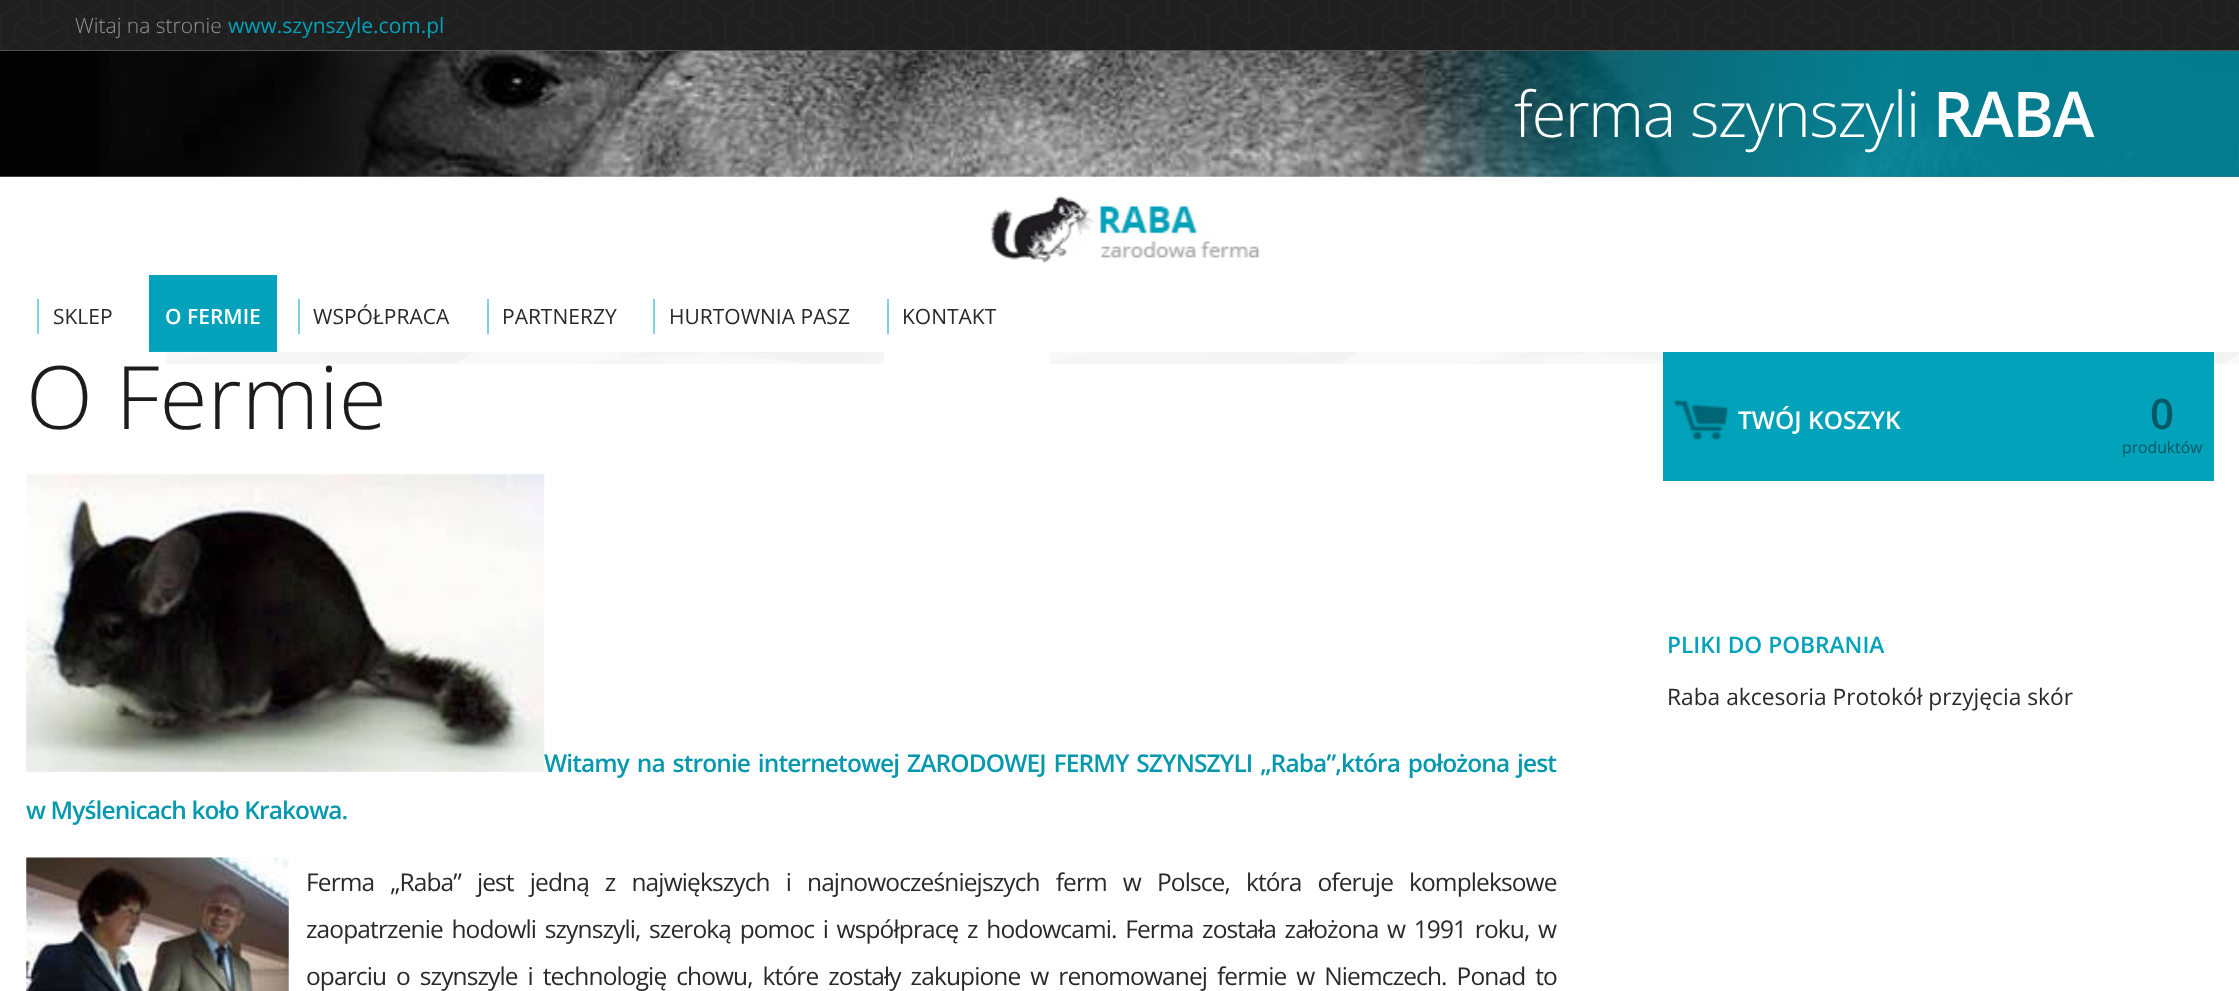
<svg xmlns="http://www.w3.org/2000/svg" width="2239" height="991">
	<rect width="100%" height="100%" fill="#FFFFFF" />
	<image x="0" y="0" width="2239" height="51" href="assets/img1.png" />
	<text x="75" y="33" font-family="Open Sans" font-size="21" font-weight="300" fill="#959595">Witaj na stronie</text>
	<text x="228" y="33" font-family="Open Sans" font-size="21" fill="#02A2BA">www.szynszyle.com.pl</text>
	<image x="0" y="50" width="2239" height="127" href="assets/img2.png" />
	<image x="1424" y="50" width="815" height="127" href="assets/img3.png" />
	<text x="1514" y="137" font-family="Open Sans" font-size="63" font-weight="300" letter-spacing="-1.25" fill="#FFFFFF">ferma szynszyli</text>
	<text x="1933" y="137" font-family="Open Sans" font-size="63" font-weight="600" letter-spacing="-1.25" fill="#FFFFFF">RABA</text>
	<image x="980" y="176" width="282" height="87" href="assets/img4.png" />
	<rect x="37" y="299" width="2" height="35" fill="#81D1DD" />
	<text x="53" y="324" font-family="Open Sans" font-size="21" fill="#292929">SKLEP</text>
	<rect x="149" y="275" width="128" height="77" fill="#02A2BA" />
	<text x="165" y="324" font-family="Open Sans" font-size="21" font-weight="600" fill="#FFFFFF">O FERMIE</text>
	<rect x="298" y="299" width="2" height="35" fill="#81D1DD" />
	<text x="313" y="324" font-family="Open Sans" font-size="21" fill="#292929">WSPÓŁPRACA</text>
	<rect x="487" y="299" width="2" height="35" fill="#81D1DD" />
	<text x="502" y="324" font-family="Open Sans" font-size="21" fill="#292929">PARTNERZY</text>
	<rect x="653" y="299" width="2" height="35" fill="#81D1DD" />
	<text x="669" y="324" font-family="Open Sans" font-size="21" fill="#292929">HURTOWNIA PASZ</text>
	<rect x="887" y="299" width="2" height="35" fill="#81D1DD" />
	<text x="902" y="324" font-family="Open Sans" font-size="21" fill="#292929">KONTAKT</text>
	<image x="149" y="351" width="2090" height="13" href="assets/img5.png" />
	<text x="26" y="429" font-family="Open Sans" font-size="87.5" font-weight="300" fill="#1F1A1C">O Fermie</text>
	<image x="26" y="474" width="519" height="298" href="assets/img6.png" />
	<g font-family="Open Sans" font-size="24.5" font-weight="600" letter-spacing="-0.88" fill="#0598AE">
		<text x="544" y="772" word-spacing="2.25">Witamy na stronie internetowej ZARODOWEJ FERMY SZYNSZYLI „Raba”,która położona jest</text>
		<text x="26" y="819">w Myślenicach koło Krakowa.</text>
	</g>
	<image x="26" y="857" width="263" height="134" href="assets/img7.png" />
	<g font-family="Open Sans" font-size="24.5" letter-spacing="-0.88" fill="#292929">
		<text x="306" y="891" word-spacing="10.5">Ferma „Raba” jest jedną z największych i najnowocześniejszych ferm w Polsce, która oferuje kompleksowe</text>
		<text x="306" y="938" word-spacing="3.1">zaopatrzenie hodowli szynszyli, szeroką pomoc i współpracę z hodowcami. Ferma została założona w 1991 roku, w</text>
		<text x="306" y="985" word-spacing="4.4">oparciu o szynszyle i technologię chowu, które zostały zakupione w renomowanej fermie w Niemczech. Ponad to</text>
	</g>
	<text x="1667" y="653" font-family="Open Sans" font-size="22.75" font-weight="600" fill="#02A2BA">PLIKI DO POBRANIA</text>
	<text x="1667" y="705" font-family="Open Sans" font-size="22.75" fill="#292929">Raba akcesoria Protokół przyjęcia skór</text>
	<rect x="1663" y="352" width="551" height="129" fill="#02A2BA" />
	<image x="1674" y="400" width="54" height="40" href="assets/img8.png" />
	<text x="1738" y="429" font-family="Open Sans" font-size="24.5" font-weight="600" fill="#FFFFFF">TWÓJ KOSZYK</text>
	<text x="2150" y="429" font-family="Open Sans" font-size="42" font-weight="600" fill="#045764">0</text>
	<text x="2122" y="453" font-family="Open Sans" font-size="15.75" fill="#045764">produktów</text>
</svg>
